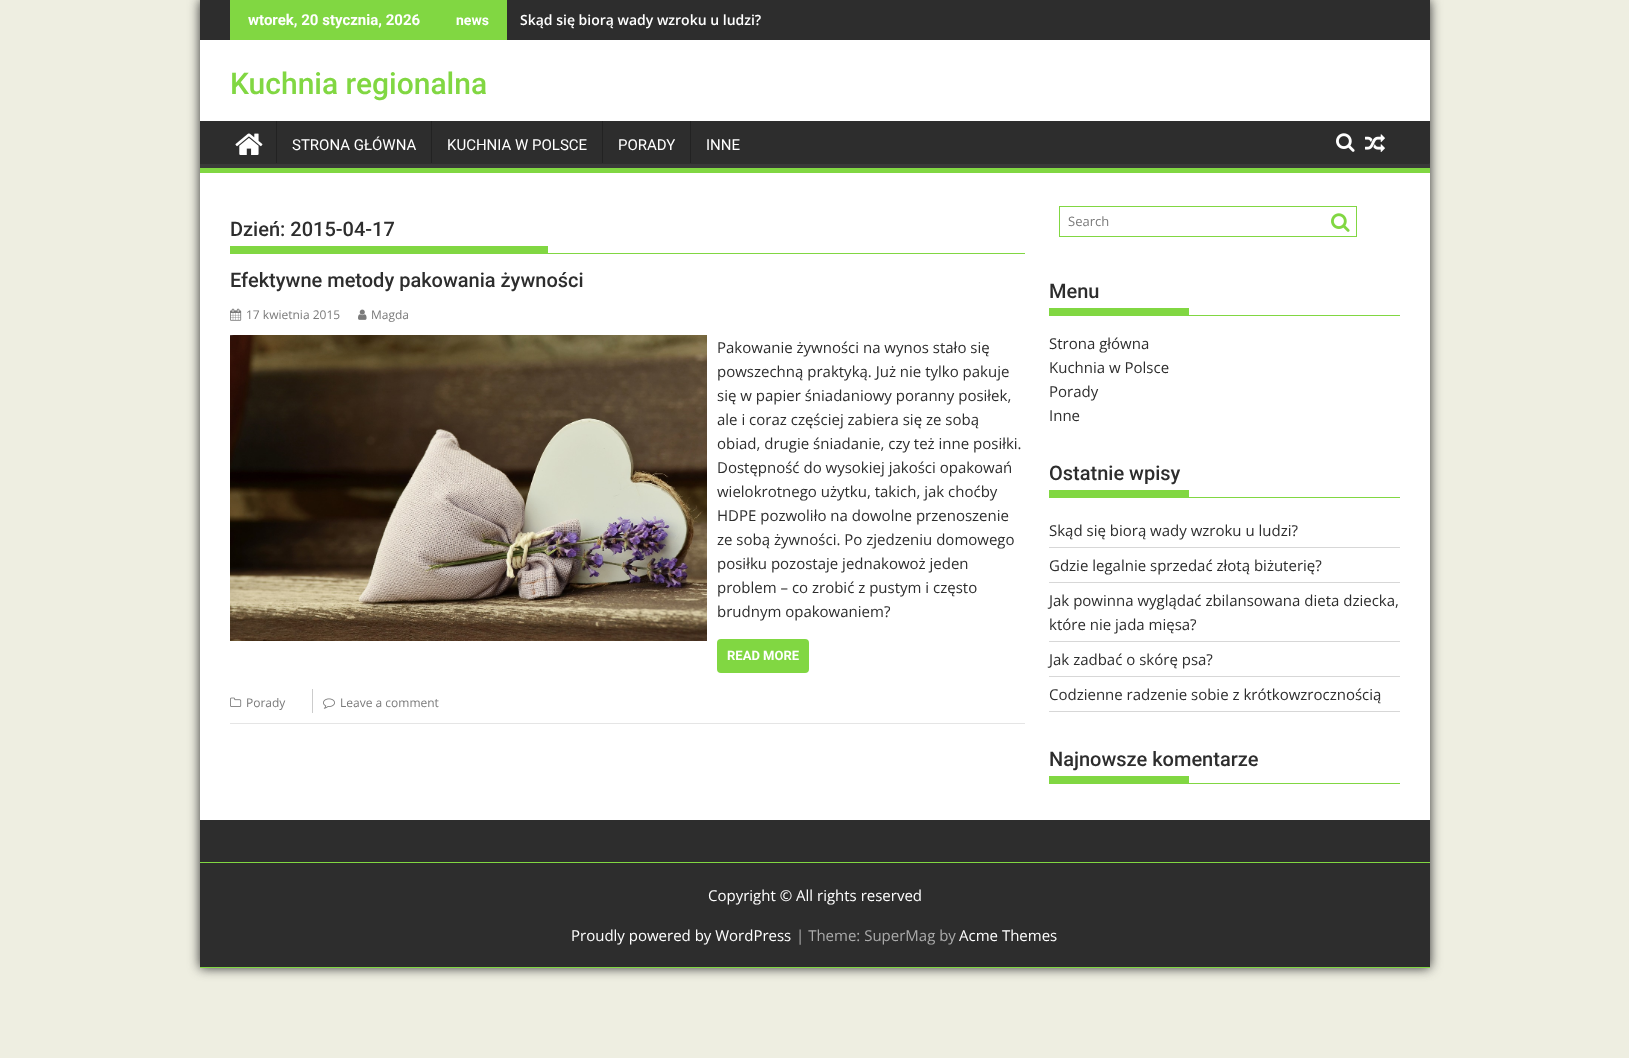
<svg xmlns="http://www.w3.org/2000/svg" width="1629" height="1058">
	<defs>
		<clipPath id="clip1"><rect x="200" y="121" width="1230" height="47" /></clipPath>
	</defs>
	<rect width="100%" height="100%" fill="#EEEEE1" />
	<rect x="200" y="0" width="1230" height="968" fill="#2D2D2D" filter="blur(6px)" />
	<rect x="200" y="40" width="1230" height="780" fill="#FFFFFF" />
	<rect x="200" y="0" width="1230" height="40" fill="#2D2D2D" />
	<rect x="230" y="0" width="277" height="40" fill="#81D742" />
	<text x="248" y="25" font-family="Roboto" font-size="15" font-weight="700" fill="#FFFFFF">wtorek, 20 stycznia, 2026</text>
	<text x="456" y="25" font-family="Roboto" font-size="14" font-weight="700" fill="#FFFFFF">news</text>
	<text x="520" y="25" font-family="Open Sans" font-size="14" font-weight="600" fill="#FFFFFF">Skąd się biorą wady wzroku u ludzi?</text>
	<text x="230" y="94" font-family="Roboto" font-size="30" font-weight="500" fill="#81D742">Kuchnia regionalna</text>
	<rect x="200" y="121" width="1230" height="43" fill="#2D2D2D" />
	<g clip-path="url(#clip1)">
		<path d="M101 22H1529V267H101ZM199 115H1429C1431 116 1430 130 1430 132V163L1429 164H199L198 163V115Z" fill="#393939" fill-rule="evenodd" />
	</g>
	<rect x="200" y="168" width="1230" height="5" fill="#81D742" />
	<image x="235" y="133" width="28" height="22" href="assets/img1.png" />
	<rect x="276" y="121" width="1" height="42" fill="#222222" />
	<text x="292" y="150" font-family="Roboto" font-size="15" fill="#FFFFFF">STRONA GŁÓWNA</text>
	<rect x="431" y="121" width="1" height="42" fill="#222222" />
	<text x="447" y="150" font-family="Roboto" font-size="15" fill="#FFFFFF">KUCHNIA W POLSCE</text>
	<rect x="602" y="121" width="1" height="42" fill="#222222" />
	<text x="618" y="150" font-family="Roboto" font-size="15" fill="#FFFFFF">PORADY</text>
	<rect x="690" y="121" width="1" height="42" fill="#222222" />
	<text x="706" y="150" font-family="Roboto" font-size="15" fill="#FFFFFF">INNE</text>
	<image x="1336" y="133" width="19" height="19" href="assets/img2.png" />
	<image x="1365" y="134" width="20" height="18" href="assets/img3.png" />
	<rect x="230" y="253" width="795" height="1" fill="#81D742" />
	<text x="230" y="236" font-family="Roboto" font-size="20" font-weight="500" fill="#2D2D2D">Dzień: 2015-04-17</text>
	<rect x="230" y="246" width="318" height="7" fill="#81D742" />
	<rect x="230" y="723" width="795" height="1" fill="#E5E5E5" />
	<text x="230" y="287" font-family="Roboto" font-size="20" font-weight="500" fill="#2D2D2D">Efektywne metody pakowania żywności</text>
	<image x="230" y="308" width="12" height="13" href="assets/img4.png" />
	<text x="246" y="319" font-family="Open Sans" font-size="12" fill="#7A7A7A">17 kwietnia 2015</text>
	<image x="358" y="309" width="9" height="11" href="assets/img5.png" />
	<text x="371" y="319" font-family="Open Sans" font-size="12" fill="#7A7A7A">Magda</text>
	<image x="230" y="335" width="477" height="306" href="assets/img6.png" />
	<g font-family="Open Sans" font-size="15" fill="#2D2D2D">
		<text x="717" y="353">Pakowanie żywności na wynos stało się</text>
		<text x="717" y="377">powszechną praktyką. Już nie tylko pakuje</text>
		<text x="717" y="401">się w papier śniadaniowy poranny posiłek,</text>
		<text x="717" y="425">ale i coraz częściej zabiera się ze sobą</text>
		<text x="717" y="449">obiad, drugie śniadanie, czy też inne posiłki.</text>
		<text x="717" y="473">Dostępność do wysokiej jakości opakowań</text>
		<text x="717" y="497">wielokrotnego użytku, takich, jak choćby</text>
		<text x="717" y="521">HDPE pozwoliło na dowolne przenoszenie</text>
		<text x="717" y="545">ze sobą żywności. Po zjedzeniu domowego</text>
		<text x="717" y="569">posiłku pozostaje jednakowoż jeden</text>
		<text x="717" y="593">problem – co zrobić z pustym i często</text>
		<text x="717" y="617">brudnym opakowaniem?</text>
	</g>
	<rect x="717" y="639" width="92" height="34" rx="4" fill="#81D742" />
	<text x="727" y="660" font-family="Roboto" font-size="13" font-weight="700" fill="#FFFFFF">READ MORE</text>
	<image x="230" y="697" width="12" height="10" href="assets/img7.png" />
	<text x="246" y="707" font-family="Open Sans" font-size="12" fill="#7A7A7A">Porady</text>
	<rect x="312" y="689" width="1" height="24" fill="#CCCCCC" />
	<image x="323" y="698" width="12" height="11" href="assets/img8.png" />
	<text x="340" y="707" font-family="Open Sans" font-size="12" fill="#7A7A7A">Leave a comment</text>
	<rect x="1059.5" y="206.5" width="297" height="30" fill="none" stroke="#81D742" />
	<text x="1068" y="226" font-family="Open Sans" font-size="13" fill="#7A7A7A">Search</text>
	<image x="1331" y="213" width="19" height="19" href="assets/img9.png" />
	<rect x="1049" y="315" width="351" height="1" fill="#81D742" />
	<text x="1049" y="298" font-family="Roboto" font-size="20" font-weight="500" fill="#2D2D2D">Menu</text>
	<rect x="1049" y="308" width="140" height="7" fill="#81D742" />
	<g font-family="Open Sans" font-size="15" fill="#2D2D2D">
		<text x="1049" y="349">Strona główna</text>
		<text x="1049" y="373">Kuchnia w Polsce</text>
		<text x="1049" y="397">Porady</text>
		<text x="1049" y="421">Inne</text>
	</g>
	<rect x="1049" y="497" width="351" height="1" fill="#81D742" />
	<text x="1049" y="480" font-family="Roboto" font-size="20" font-weight="500" fill="#2D2D2D">Ostatnie wpisy</text>
	<rect x="1049" y="490" width="140" height="7" fill="#81D742" />
	<rect x="1049" y="547" width="351" height="1" fill="#D7D7D7" />
	<text x="1049" y="536" font-family="Open Sans" font-size="15" fill="#2D2D2D">Skąd się biorą wady wzroku u ludzi?</text>
	<rect x="1049" y="582" width="351" height="1" fill="#D7D7D7" />
	<text x="1049" y="571" font-family="Open Sans" font-size="15" fill="#2D2D2D">Gdzie legalnie sprzedać złotą biżuterię?</text>
	<rect x="1049" y="641" width="351" height="1" fill="#D7D7D7" />
	<g font-family="Open Sans" font-size="15" fill="#2D2D2D">
		<text x="1049" y="606">Jak powinna wyglądać zbilansowana dieta dziecka,</text>
		<text x="1049" y="630">które nie jada mięsa?</text>
	</g>
	<rect x="1049" y="676" width="351" height="1" fill="#D7D7D7" />
	<text x="1049" y="665" font-family="Open Sans" font-size="15" fill="#2D2D2D">Jak zadbać o skórę psa?</text>
	<rect x="1049" y="711" width="351" height="1" fill="#D7D7D7" />
	<text x="1049" y="700" font-family="Open Sans" font-size="15" fill="#2D2D2D">Codzienne radzenie sobie z krótkowzrocznością</text>
	<rect x="1049" y="783" width="351" height="1" fill="#81D742" />
	<text x="1049" y="766" font-family="Roboto" font-size="20" font-weight="500" fill="#2D2D2D">Najnowsze komentarze</text>
	<rect x="1049" y="776" width="140" height="7" fill="#81D742" />
	<rect x="200" y="820" width="1230" height="147" fill="#2D2D2D" />
	<rect x="200" y="967" width="1230" height="1" fill="#81D742" />
	<rect x="200" y="862" width="1230" height="1" fill="#81D742" />
	<g font-family="Open Sans" font-size="15" fill="#FFFFFF">
		<text x="708" y="901">Copyright © All rights reserved</text>
		<text x="571" y="941">Proudly powered by WordPress</text>
	</g>
	<text x="796" y="941" font-family="Open Sans" font-size="15" fill="#ABABAB">| Theme: SuperMag by</text>
	<text x="959" y="941" font-family="Open Sans" font-size="15" fill="#FFFFFF">Acme Themes</text>
</svg>
